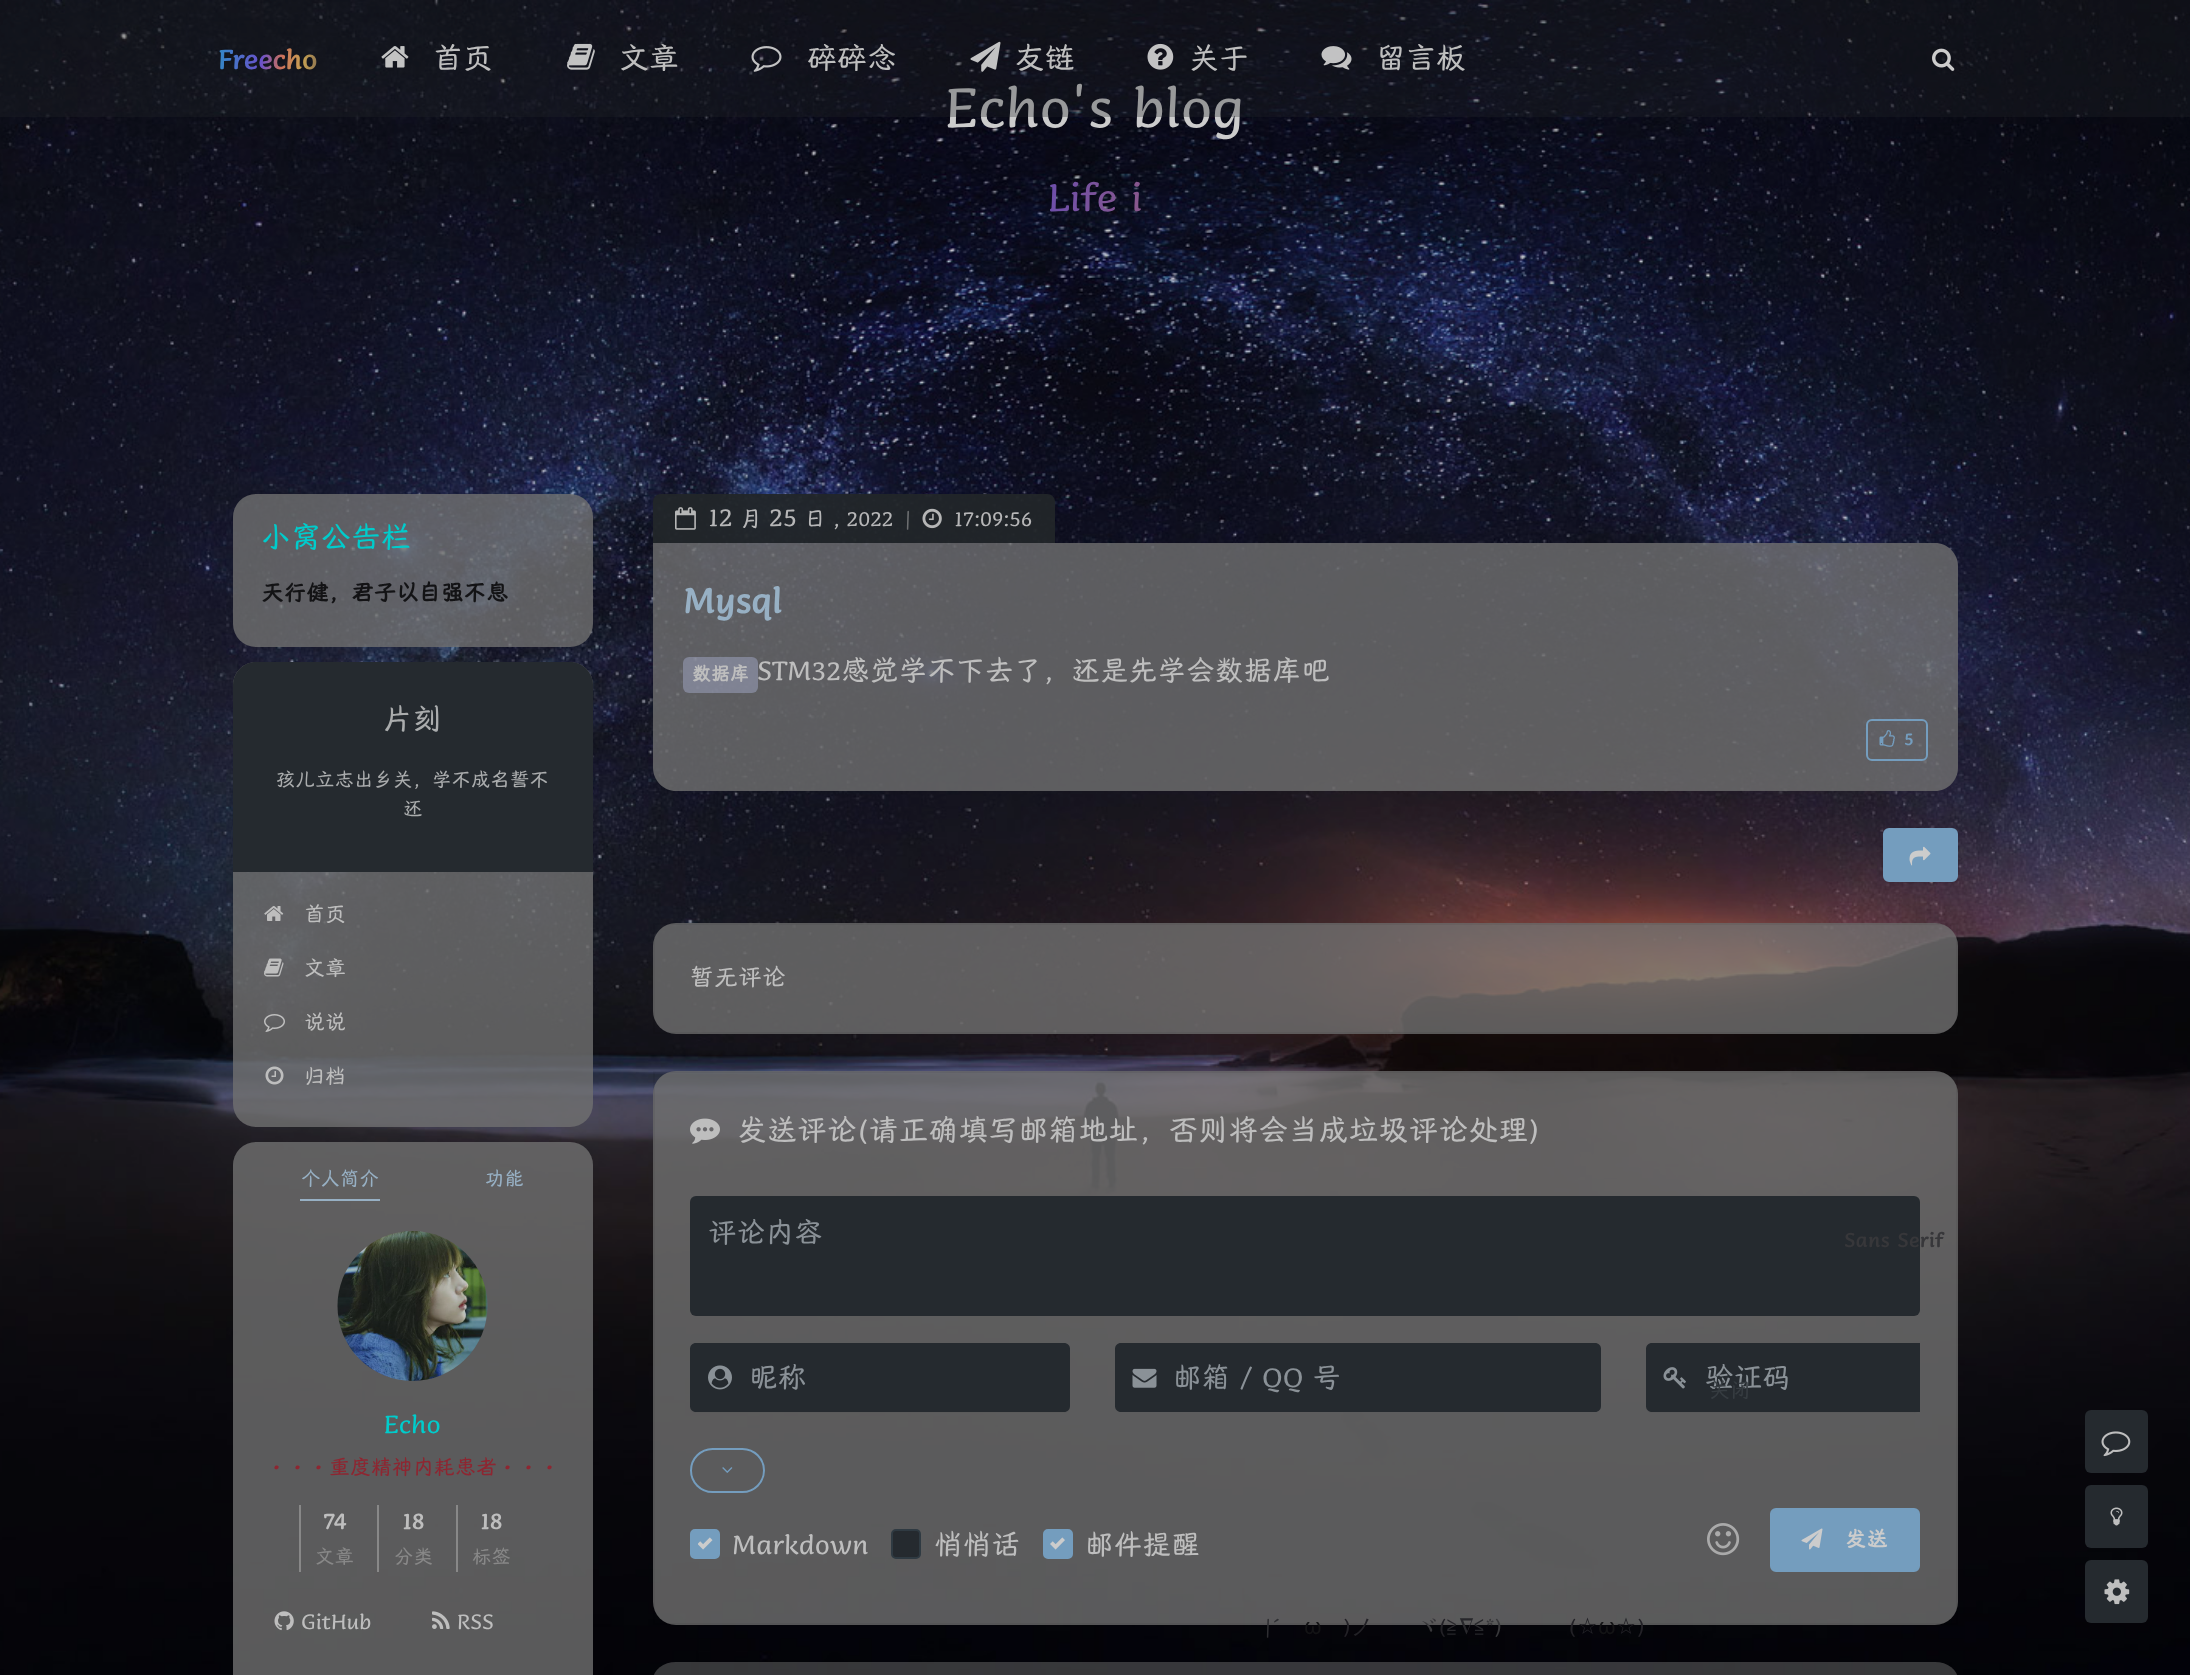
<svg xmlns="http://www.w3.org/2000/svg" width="2190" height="1675">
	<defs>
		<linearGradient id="g1" gradientUnits="userSpaceOnUse" x1="216" y1="55" x2="319" y2="64"><stop offset="0" stop-color="#308AC6" /><stop offset="0.44" stop-color="#6951CA" /><stop offset="0.64" stop-color="#CC715A" /><stop offset="0.84" stop-color="#C6A152" /><stop offset="1" stop-color="#8A7250" /></linearGradient>
		<linearGradient id="g2" gradientUnits="userSpaceOnUse" x1="318" y1="133" x2="1872" y2="262"><stop offset="0" stop-color="#2D7EB5" /><stop offset="0.44" stop-color="#604ABA" /><stop offset="0.64" stop-color="#B96754" /><stop offset="0.84" stop-color="#B3924D" /><stop offset="1" stop-color="#7E694B" /></linearGradient>
	</defs>
	<rect width="100%" height="100%" fill="#FFFFFF" />
	<image x="0" y="0" width="2190" height="1675" href="assets/img8.png" />
	<text x="945" y="127" font-family="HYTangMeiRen" font-size="60" fill="#CCCCCC">Echo's blog</text>
	<rect x="0" y="0" width="2190" height="117" fill="#222629" fill-opacity="0.31" />
	<text x="218" y="69" font-family="HYTangMeiRen" font-size="28.75" font-weight="700" fill="url(#g1)">Freecho</text>
	<image x="381" y="46" width="28" height="22" href="assets/img1.png" />
	<text x="433" y="68" font-family="HYTangMeiRen" font-size="30" fill="#BEBEBE">首页</text>
	<image x="567" y="43" width="28" height="27" href="assets/img2.png" />
	<text x="619" y="68" font-family="HYTangMeiRen" font-size="30" fill="#BEBEBE">文章</text>
	<image x="751" y="46" width="31" height="26" href="assets/img3.png" />
	<text x="807" y="68" font-family="HYTangMeiRen" font-size="30" fill="#BEBEBE">碎碎念</text>
	<image x="970" y="41" width="31" height="31" href="assets/img4.png" />
	<text x="1015" y="68" font-family="HYTangMeiRen" font-size="30" fill="#BEBEBE">友链</text>
	<image x="1147" y="43" width="27" height="27" href="assets/img5.png" />
	<text x="1189" y="68" font-family="HYTangMeiRen" font-size="30" fill="#BEBEBE">关于</text>
	<image x="1321" y="46" width="31" height="24" href="assets/img6.png" />
	<text x="1376" y="68" font-family="HYTangMeiRen" font-size="30" fill="#BEBEBE">留言板</text>
	<image x="1932" y="48" width="23" height="23" href="assets/img7.png" />
	<text x="1048" y="211" font-family="HYTangMeiRen" font-size="42" fill="url(#g2)">Life i</text>
	<rect x="233" y="494" width="360" height="153" rx="23" fill="#707070" fill-opacity="0.8" />
	<text x="261" y="547" font-family="HYTangMeiRen" font-size="30" fill="#00CCCC">小窝公告栏</text>
	<text x="261" y="600" font-family="HYTangMeiRen" font-size="22.5" font-weight="700" fill="#131315">天行健，君子以自强不息</text>
	<rect x="233" y="662" width="360" height="465" rx="23" fill="#707070" fill-opacity="0.8" />
	<path d="M256 662H570C582.5 662 593 672.5 593 685V872H233V685C233 672.5 243.5 662 256 662Z" fill="#252A2F" />
	<text x="383" y="729" font-family="HYTangMeiRen" font-size="30" fill="#AAACAD">片刻</text>
	<g font-family="HYTangMeiRen" font-size="19.5" fill="#AAACAD">
		<text x="276" y="786">孩儿立志出乡关，学不成名誓不</text>
		<text x="403" y="815">还</text>
	</g>
	<image x="264" y="906" width="20" height="15" href="assets/img9.png" />
	<text x="304" y="921" font-family="HYTangMeiRen" font-size="21" fill="#BEBEBE">首页</text>
	<image x="264" y="958" width="20" height="19" href="assets/img10.png" />
	<text x="304" y="975" font-family="HYTangMeiRen" font-size="21" fill="#BEBEBE">文章</text>
	<image x="264" y="1014" width="21" height="18" href="assets/img11.png" />
	<text x="304" y="1029" font-family="HYTangMeiRen" font-size="21" fill="#BEBEBE">说说</text>
	<image x="265" y="1066" width="19" height="19" href="assets/img12.png" />
	<text x="304" y="1083" font-family="HYTangMeiRen" font-size="21" fill="#BEBEBE">归档</text>
	<rect x="233" y="1142" width="360" height="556" rx="23" fill="#707070" fill-opacity="0.8" />
	<text x="301" y="1185" font-family="HYTangMeiRen" font-size="19.5" fill="#97B0C4">个人简介</text>
	<rect x="300" y="1199" width="80" height="2" fill="#97B0C4" />
	<text x="485" y="1185" font-family="HYTangMeiRen" font-size="19.5" fill="#97B0C4">功能</text>
	<image x="337" y="1231" width="151" height="150" href="assets/img13.png" />
	<text x="384" y="1433" font-family="HYTangMeiRen" font-size="27" fill="#00CCCC">Echo</text>
	<text x="266" y="1474" font-family="HYTangMeiRen" font-size="21" fill="#8E2631">···重度精神内耗患者···</text>
	<rect x="299" y="1505" width="2" height="67" fill="#888888" />
	<text x="323" y="1529" font-family="HYTangMeiRen" font-size="24" font-weight="700" fill="#BEBEBE">74</text>
	<text x="315" y="1563" font-family="HYTangMeiRen" font-size="19.5" fill="#888888">文章</text>
	<rect x="377" y="1505" width="2" height="67" fill="#888888" />
	<text x="402" y="1529" font-family="HYTangMeiRen" font-size="24" font-weight="700" fill="#BEBEBE">18</text>
	<text x="394" y="1563" font-family="HYTangMeiRen" font-size="19.5" fill="#888888">分类</text>
	<rect x="456" y="1505" width="2" height="67" fill="#888888" />
	<text x="480" y="1529" font-family="HYTangMeiRen" font-size="24" font-weight="700" fill="#BEBEBE">18</text>
	<text x="472" y="1563" font-family="HYTangMeiRen" font-size="19.5" fill="#888888">标签</text>
	<image x="274" y="1611" width="20" height="20" href="assets/img14.png" />
	<text x="301" y="1629" font-family="HYTangMeiRen" font-size="22.5" fill="#BEBEBE">GitHub</text>
	<image x="432" y="1611" width="18" height="18" href="assets/img15.png" />
	<text x="457" y="1629" font-family="HYTangMeiRen" font-size="22.5" fill="#BEBEBE">RSS</text>
	<path d="M661 494H1047C1051.5 494 1055 497.5 1055 502V543H653V502C653 497.5 656.5 494 661 494Z" fill="#222629" fill-opacity="0.95" />
	<image x="675" y="507" width="21" height="23" href="assets/img16.png" />
	<text x="708" y="526" font-family="HYTangMeiRen" font-size="27" fill="#B6B6B7">12</text>
	<text x="740" y="526" font-family="HYTangMeiRen" font-size="22.5" fill="#B6B6B7">月</text>
	<text x="769" y="526" font-family="HYTangMeiRen" font-size="27" fill="#B6B6B7">25</text>
	<text x="804" y="526" font-family="HYTangMeiRen" font-size="22.5" fill="#B6B6B7">日 , 2022</text>
	<text x="905" y="526" font-family="HYTangMeiRen" font-size="22" fill="#6C6E70">|</text>
	<image x="922" y="508" width="20" height="21" href="assets/img17.png" />
	<text x="954" y="526" font-family="HYTangMeiRen" font-size="22.5" fill="#B6B6B7">17:09:56</text>
	<path d="M653 543H1935C1947.5 543 1958 553.5 1958 566V768C1958 780.5 1947.5 791 1935 791H676C663.5 791 653 780.5 653 768Z" fill="#707070" fill-opacity="0.8" />
	<text x="683" y="613" font-family="HYTangMeiRen" font-size="37.5" font-weight="700" fill="#97B0C4">Mysql</text>
	<rect x="683" y="657" width="75" height="36" rx="6" fill="#A2A8C5" fill-opacity="0.5" />
	<text x="692" y="680" font-family="HYTangMeiRen" font-size="19" font-weight="700" fill="#BEBEBE">数据库</text>
	<text x="757" y="680" font-family="HYTangMeiRen" font-size="28.75" fill="#BEBEBE">STM32感觉学不下去了，还是先学会数据库吧</text>
	<rect x="1867" y="720" width="60" height="40" rx="5" fill="none" stroke="#749DBE" stroke-width="2" />
	<image x="1879" y="730" width="16" height="17" href="assets/img18.png" />
	<text x="1904" y="745" font-family="HYTangMeiRen" font-size="18" font-weight="700" fill="#749DBE">5</text>
	<rect x="1883" y="830" width="75" height="54" rx="6" fill="#000000" fill-opacity="0.08" filter="blur(2px)" />
	<rect x="1884" y="829" width="73" height="52" rx="5" fill="#749DBE" stroke="#749DBE" stroke-width="2" />
	<image x="1909" y="846" width="22" height="20" href="assets/img19.png" />
	<rect x="653" y="923" width="1305" height="111" rx="23" fill="#707070" fill-opacity="0.8" />
	<rect x="654" y="924" width="1303" height="109" fill="none" stroke="#000000" stroke-opacity="0.05" stroke-width="2" />
	<text x="690" y="985" font-family="HYTangMeiRen" font-size="24" fill="#BEBEBE">暂无评论</text>
	<rect x="653" y="1071" width="1305" height="554" rx="23" fill="#707070" fill-opacity="0.8" />
	<rect x="654" y="1072" width="1303" height="552" fill="none" stroke="#000000" stroke-opacity="0.05" stroke-width="2" />
	<image x="690" y="1118" width="30" height="26" href="assets/img20.png" />
	<text x="737" y="1140" font-family="HYTangMeiRen" font-size="30" fill="#BEBEBE">发送评论(请正确填写邮箱地址，否则将会当成垃圾评论处理)</text>
	<rect x="690" y="1196" width="1230" height="120" rx="6" fill="#252A2F" />
	<text x="708" y="1242" font-family="HYTangMeiRen" font-size="28.75" fill="#8A9197">评论内容</text>
	<path d="M690 1406V1407C690 1410 693 1413 696 1413H1064C1067 1413 1070 1410 1070 1407V1350L1069 1347L1070 1406C1070 1409 1067 1412 1064 1412H696C693 1412 690 1409 690 1406Z" fill="#5A5A5A" />
	<path d="M696 1343H750V1412H696C692.5 1412 690 1409.5 690 1406V1349C690 1345.5 692.5 1343 696 1343Z" fill="#252A2F" />
	<image x="708" y="1365" width="24" height="25" href="assets/img21.png" />
	<path d="M749 1343H1064C1067.5 1343 1070 1345.5 1070 1349V1406C1070 1409.5 1067.5 1412 1064 1412H749Z" fill="#252A2F" />
	<text x="749" y="1387" font-family="HYTangMeiRen" font-size="28.75" fill="#8A9197">昵称</text>
	<path d="M1121 1343H1175V1412H1121C1117.5 1412 1115 1409.5 1115 1406V1349C1115 1345.5 1117.5 1343 1121 1343Z" fill="#252A2F" />
	<image x="1132" y="1368" width="25" height="20" href="assets/img22.png" />
	<path d="M1173 1343H1595C1598.5 1343 1601 1345.5 1601 1349V1406C1601 1409.5 1598.5 1412 1595 1412H1173Z" fill="#252A2F" />
	<text x="1173" y="1387" font-family="HYTangMeiRen" font-size="28.75" fill="#8A9197">邮箱 / QQ 号</text>
	<path d="M1646 1408C1647 1411 1649 1413 1652 1413H1914C1917 1413 1920 1410 1920 1407V1406C1920 1409 1917 1412 1914 1412H1652C1649 1412 1647 1410 1646 1408Z" fill="#5A5A5B" />
	<path d="M1652 1343H1706V1412H1652C1648.5 1412 1646 1409.5 1646 1406V1349C1646 1345.5 1648.5 1343 1652 1343Z" fill="#252A2F" />
	<image x="1663" y="1367" width="23" height="22" href="assets/img23.png" />
	<rect x="1706" y="1343" width="214" height="69" fill="#252A2F" />
	<text x="1705" y="1387" font-family="HYTangMeiRen" font-size="28.75" fill="#8A9197">验证码</text>
	<rect x="691" y="1449" width="73" height="43" rx="21.5" fill="none" stroke="#749DBE" stroke-width="2" />
	<image x="722" y="1467" width="11" height="6" href="assets/img24.png" />
	<rect x="691" y="1530" width="28" height="28" rx="4" fill="#749DBE" stroke="#749DBE" stroke-width="2" />
	<text x="732" y="1554" font-family="HYTangMeiRen" font-size="28.75" fill="#BEBEBE">Markdown</text>
	<image x="698" y="1537" width="15" height="13" href="assets/img25.png" />
	<rect x="892" y="1530" width="28" height="28" rx="4" fill="#252A2F" stroke="#2F3A42" stroke-width="2" />
	<text x="934" y="1554" font-family="HYTangMeiRen" font-size="28.75" fill="#BEBEBE">悄悄话</text>
	<rect x="1044" y="1530" width="28" height="28" rx="4" fill="#749DBE" stroke="#749DBE" stroke-width="2" />
	<text x="1085" y="1554" font-family="HYTangMeiRen" font-size="28.75" fill="#BEBEBE">邮件提醒</text>
	<image x="1050" y="1537" width="15" height="13" href="assets/img26.png" />
	<image x="1707" y="1523" width="33" height="33" href="assets/img27.png" />
	<rect x="1771" y="1509" width="148" height="62" rx="5" fill="#749DBE" stroke="#749DBE" stroke-width="2" />
	<image x="1801" y="1528" width="22" height="22" href="assets/img28.png" />
	<text x="1845" y="1546" font-family="HYTangMeiRen" font-size="21" font-weight="700" letter-spacing="0.5" fill="#CCCCCC">发送</text>
	<text x="1265" y="1634" font-family="HYTangMeiRen" font-size="22" fill="#2E2E32">|´</text>
	<text x="1304" y="1634" font-family="Inter" font-size="22" fill="#131315">ω</text>
	<text x="1343" y="1634" font-family="HYTangMeiRen" font-size="22" fill="#222126">)</text>
	<text x="1351" y="1634" font-family="WenQuanYi Zen Hei" font-size="22" font-weight="500" fill="#222126">ノ</text>
	<text x="1416" y="1634" font-family="WenQuanYi Zen Hei" font-size="22" font-weight="500" fill="#37373A">ヾ</text>
	<text x="1438" y="1634" font-family="HYTangMeiRen" font-size="22" fill="#222126">(</text>
	<text x="1446" y="1634" font-family="WenQuanYi Zen Hei" font-size="22" font-weight="500" fill="#27272B">≧∇≦</text>
	<text x="1486" y="1634" font-family="HYTangMeiRen" font-size="22" fill="#37373A">*)</text>
	<text x="1568" y="1634" font-family="HYTangMeiRen" font-size="22" fill="#222126">(☆</text>
	<text x="1598" y="1634" font-family="Inter" font-size="22" fill="#131315">ω</text>
	<text x="1615" y="1634" font-family="HYTangMeiRen" font-size="22" fill="#222126">☆)</text>
	<rect x="653" y="1662" width="1305" height="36" rx="23" fill="#707070" fill-opacity="0.48" />
	<text x="1844" y="1247" font-family="HYTangMeiRen" font-size="21" font-weight="700" letter-spacing="0.5" fill="#37373A">Sans Serif</text>
	<text x="1709" y="1397" font-family="HYTangMeiRen" font-size="21" fill="#363C41">关闭</text>
	<rect x="2085" y="1410" width="63" height="63" rx="6" fill="#252A2F" />
	<image x="2101" y="1431" width="30" height="26" href="assets/img29.png" />
	<rect x="2085" y="1485" width="63" height="63" rx="6" fill="#252A2F" />
	<image x="2110" y="1507" width="13" height="19" href="assets/img30.png" />
	<rect x="2085" y="1560" width="63" height="63" rx="6" fill="#252A2F" />
	<image x="2104" y="1579" width="26" height="26" href="assets/img31.png" />
</svg>
